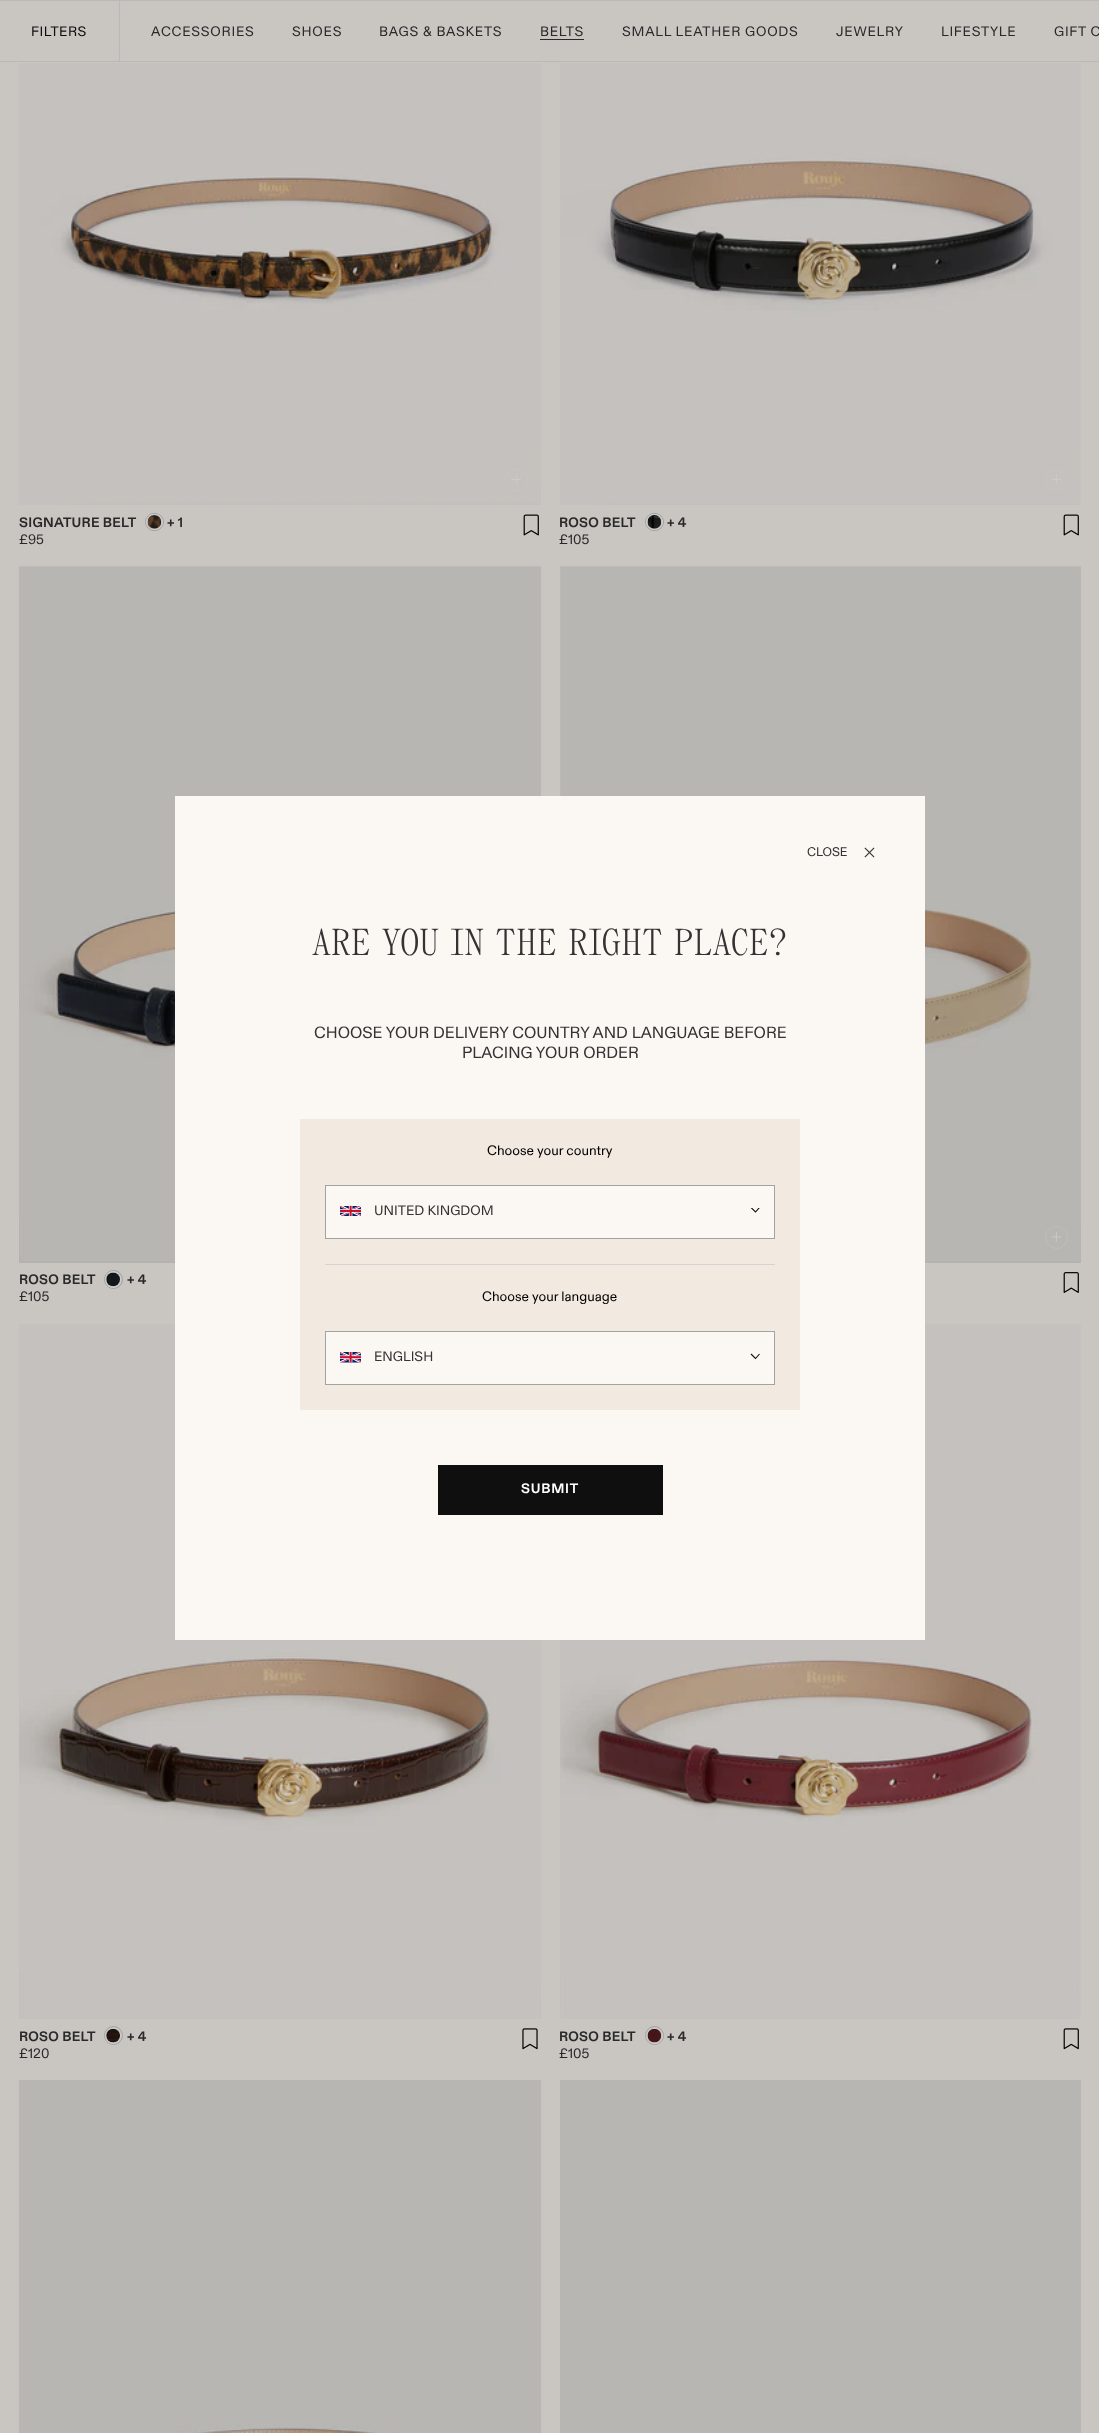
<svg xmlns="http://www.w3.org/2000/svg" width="1099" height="2433">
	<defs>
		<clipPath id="clip1"><rect x="750" y="1208" width="10" height="6" /></clipPath>
	</defs>
	<rect width="100%" height="100%" fill="#C9C6C2" />
	<rect x="0" y="0" width="1099" height="1" fill="#B9B9B9" />
	<rect x="0" y="61" width="1099" height="1" fill="#B9B9B9" />
	<rect x="119" y="1" width="1" height="60" fill="#B9B9B9" />
	<text x="31" y="36" font-family="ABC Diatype" font-size="13.75" letter-spacing="0.5" fill="#0C0C0C">FILTERS</text>
	<g font-family="ABC Diatype" font-size="13.75" letter-spacing="0.75" fill="#292929">
		<text x="151" y="36">ACCESSORIES</text>
		<text x="292" y="36">SHOES</text>
		<text x="379" y="36">BAGS &amp; BASKETS</text>
		<text x="540" y="36">BELTS</text>
	</g>
	<rect x="540" y="39" width="44" height="1" fill="#292929" />
	<g font-family="ABC Diatype" font-size="13.75" letter-spacing="0.75" fill="#292929">
		<text x="622" y="36">SMALL LEATHER GOODS</text>
		<text x="836" y="36">JEWELRY</text>
		<text x="941" y="36">LIFESTYLE</text>
		<text x="1054" y="36">GIFT C</text>
	</g>
	<image x="19" y="63" width="522" height="442" href="assets/img1.png" />
	<image x="511" y="474" width="10" height="11" href="assets/img2.png" />
	<rect x="505.5" y="469.5" width="22" height="21" rx="10.5" fill="none" stroke="#C7C6C4" />
	<text x="19" y="527" font-family="ABC Diatype" font-size="13.75" font-weight="700" letter-spacing="0.25" fill="#292929">SIGNATURE BELT</text>
	<rect x="145.5" y="513.5" width="18" height="17" rx="8.5" fill="none" stroke="#A2A2A2" />
	<rect x="146.5" y="514.5" width="16" height="15" rx="7.5" fill="none" stroke="#CCCCCC" />
	<image x="147" y="515" width="15" height="14" href="assets/img3.png" />
	<text x="167" y="527" font-family="ABC Diatype" font-size="13.75" font-weight="700" letter-spacing="0.25" fill="#292929">+ 1</text>
	<text x="19" y="544" font-family="ABC Diatype" font-size="13.75" fill="#292929">£95</text>
	<image x="523" y="514" width="16" height="22" href="assets/img4.png" />
	<image x="560" y="63" width="521" height="442" href="assets/img5.png" />
	<image x="1051" y="474" width="10" height="11" href="assets/img2.png" />
	<rect x="1045.5" y="469.5" width="22" height="21" rx="10.5" fill="none" stroke="#C7C6C4" />
	<text x="559" y="527" font-family="ABC Diatype" font-size="13.75" font-weight="700" letter-spacing="0.25" fill="#292929">ROSO BELT</text>
	<rect x="645.5" y="513.5" width="18" height="17" rx="8.5" fill="none" stroke="#A2A2A2" />
	<rect x="646.5" y="514.5" width="16" height="15" rx="7.5" fill="none" stroke="#CCCCCC" />
	<image x="647" y="515" width="15" height="14" href="assets/img6.png" />
	<text x="667" y="527" font-family="ABC Diatype" font-size="13.75" font-weight="700" letter-spacing="0.25" fill="#292929">+ 4</text>
	<text x="559" y="544" font-family="ABC Diatype" font-size="13.75" fill="#292929">£105</text>
	<image x="1063" y="514" width="16" height="22" href="assets/img4.png" />
	<image x="19" y="566" width="522" height="697" href="assets/img7.png" />
	<text x="19" y="1284" font-family="ABC Diatype" font-size="13.75" font-weight="700" letter-spacing="0.25" fill="#292929">ROSO BELT</text>
	<circle cx="113.5" cy="1279.5" r="9" fill="none" stroke="#A2A2A2" />
	<rect x="105.5" y="1271.5" width="15" height="16" rx="7.5" fill="none" stroke="#CCCCCC" />
	<image x="106" y="1272" width="14" height="15" href="assets/img8.png" />
	<text x="127" y="1284" font-family="ABC Diatype" font-size="13.75" font-weight="700" letter-spacing="0.25" fill="#292929">+ 4</text>
	<text x="19" y="1301" font-family="ABC Diatype" font-size="13.75" fill="#292929">£105</text>
	<image x="560" y="566" width="521" height="697" href="assets/img9.png" />
	<image x="1051" y="1232" width="11" height="10" href="assets/img10.png" />
	<circle cx="1056.5" cy="1237.5" r="11" fill="none" stroke="#BFBEBD" />
	<image x="1063" y="1272" width="16" height="21" href="assets/img11.png" />
	<image x="19" y="1324" width="522" height="695" href="assets/img12.png" />
	<text x="19" y="2041" font-family="ABC Diatype" font-size="13.75" font-weight="700" letter-spacing="0.25" fill="#292929">ROSO BELT</text>
	<circle cx="113.5" cy="2035.5" r="9" fill="none" stroke="#A2A2A2" />
	<circle cx="113" cy="2036" r="7.5" fill="none" stroke="#CCCCCC" />
	<image x="106" y="2028" width="14" height="15" href="assets/img13.png" />
	<text x="127" y="2041" font-family="ABC Diatype" font-size="13.75" font-weight="700" letter-spacing="0.25" fill="#292929">+ 4</text>
	<text x="19" y="2058" font-family="ABC Diatype" font-size="13.75" fill="#292929">£120</text>
	<image x="522" y="2028" width="16" height="22" href="assets/img14.png" />
	<image x="560" y="1324" width="521" height="695" href="assets/img15.png" />
	<text x="559" y="2041" font-family="ABC Diatype" font-size="13.75" font-weight="700" letter-spacing="0.25" fill="#292929">ROSO BELT</text>
	<circle cx="654.5" cy="2035.5" r="9" fill="none" stroke="#A2A2A2" />
	<rect x="646.5" y="2028.5" width="16" height="15" rx="7.5" fill="none" stroke="#CCCCCC" />
	<image x="647" y="2028" width="15" height="15" href="assets/img16.png" />
	<text x="667" y="2041" font-family="ABC Diatype" font-size="13.75" font-weight="700" letter-spacing="0.25" fill="#292929">+ 4</text>
	<text x="559" y="2058" font-family="ABC Diatype" font-size="13.75" fill="#292929">£105</text>
	<image x="1063" y="2028" width="16" height="22" href="assets/img17.png" />
	<image x="19" y="2080" width="522" height="353" href="assets/img18.png" />
	<rect x="560" y="2080" width="521" height="353" fill="#B7B6B2" />
	<rect x="175" y="796" width="750" height="844" fill="#FBF7F3" />
	<text x="807" y="856" font-family="ABC Diatype" font-size="12.5" fill="#333333">CLOSE</text>
	<image x="864" y="847" width="11" height="11" href="assets/img19.png" />
	<text x="312" y="955" font-family="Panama" font-size="37.5" fill="#333333">ARE YOU IN THE RIGHT PLACE?</text>
	<g font-family="ABC Diatype" font-size="16.25" fill="#333333">
		<text x="314" y="1038">CHOOSE YOUR DELIVERY COUNTRY AND LANGUAGE BEFORE</text>
		<text x="462" y="1058">PLACING YOUR ORDER</text>
	</g>
	<rect x="300" y="1119" width="500" height="291" fill="#F2E9E0" />
	<text x="487" y="1155" font-family="ABC Diatype" font-size="13.75" fill="#000000">Choose your country</text>
	<rect x="325.5" y="1185.5" width="449" height="53" fill="#FBF7F3" stroke="#A3A3A3" />
	<image x="340" y="1205" width="21" height="11" href="assets/img20.png" />
	<text x="374" y="1215" font-family="ABC Diatype" font-size="13.75" fill="#333333">UNITED KINGDOM</text>
	<g clip-path="url(#clip1)">
		<path d="M759.5 1207.5L755.5 1212L751 1207.5" fill="none" stroke="#0F0F0F" stroke-width="1.1" />
	</g>
	<rect x="325" y="1264" width="450" height="1" fill="#D6D3D3" />
	<text x="482" y="1301" font-family="ABC Diatype" font-size="13.75" fill="#000000">Choose your language</text>
	<rect x="325.5" y="1331.5" width="449" height="53" fill="#FBF7F3" stroke="#A3A3A3" />
	<image x="340" y="1352" width="21" height="11" href="assets/img21.png" />
	<text x="374" y="1361" font-family="ABC Diatype" font-size="13.75" fill="#333333">ENGLISH</text>
	<path d="M759.5 1354L755.5 1358.5L751 1354" fill="none" stroke="#0F0F0F" stroke-width="1.1" />
	<rect x="438" y="1465" width="225" height="50" fill="#0F0F0F" />
	<text x="521" y="1493" font-family="ABC Diatype" font-size="13.75" font-weight="700" letter-spacing="0.75" fill="#FFFFFF">SUBMIT</text>
</svg>
